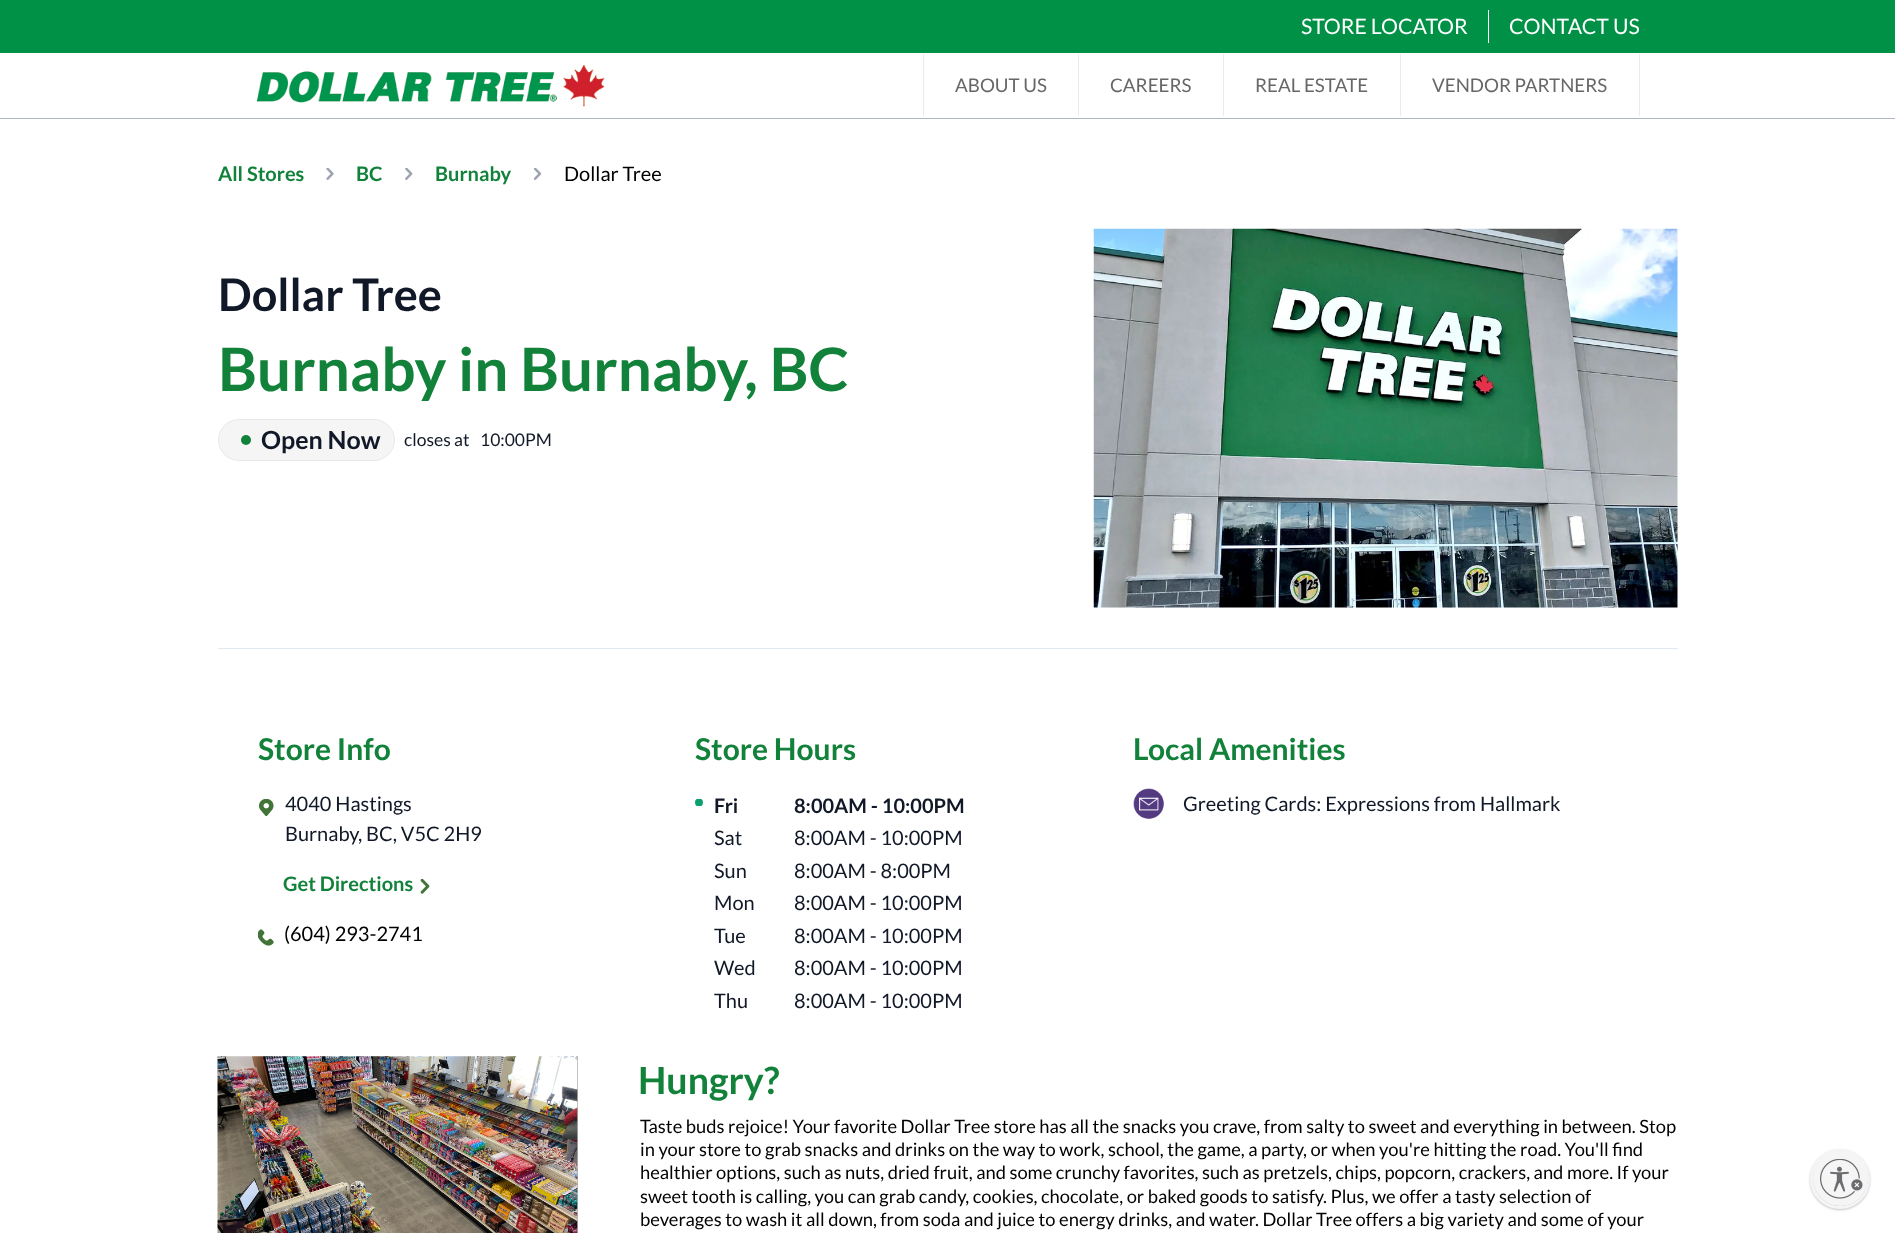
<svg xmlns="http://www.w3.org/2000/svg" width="1895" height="1233">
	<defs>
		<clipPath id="clip1"><rect x="695" y="799" width="8" height="7" /></clipPath>
		<clipPath id="clip2"><rect x="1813" y="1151" width="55" height="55" rx="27.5" /></clipPath>
	</defs>
	<rect width="100%" height="100%" fill="#FFFFFF" />
	<rect x="0" y="118" width="1895" height="1" fill="#ABB8C3" />
	<rect x="0" y="0" width="1895" height="53" fill="#009147" />
	<rect x="1488" y="10" width="1" height="33" fill="#FFFFFF" />
	<g font-family="Lato" font-size="21.25" fill="#FFFFFF">
		<text x="1301" y="34">STORE LOCATOR</text>
		<text x="1509" y="34">CONTACT US</text>
	</g>
	<image x="256" y="64" width="349" height="43" href="assets/img1.png" />
	<text x="955" y="92" font-family="Lato" font-size="18.75" fill="#676767">ABOUT US</text>
	<rect x="923" y="54" width="1" height="62" fill="#EBEBEB" />
	<text x="1110" y="92" font-family="Lato" font-size="18.75" fill="#676767">CAREERS</text>
	<rect x="1078" y="54" width="1" height="62" fill="#EBEBEB" />
	<text x="1255" y="92" font-family="Lato" font-size="18.75" fill="#676767">REAL ESTATE</text>
	<rect x="1223" y="54" width="1" height="62" fill="#EBEBEB" />
	<text x="1432" y="92" font-family="Lato" font-size="18.75" fill="#676767">VENDOR PARTNERS</text>
	<rect x="1639" y="54" width="1" height="62" fill="#EBEBEB" />
	<rect x="1400" y="54" width="1" height="62" fill="#EBEBEB" />
	<text x="218" y="181" font-family="Lato" font-size="20" font-weight="700" fill="#12823B">All Stores</text>
	<image x="326" y="168" width="8" height="12" href="assets/img2.png" />
	<text x="356" y="181" font-family="Lato" font-size="20" font-weight="700" fill="#12823B">BC</text>
	<image x="405" y="168" width="8" height="12" href="assets/img3.png" />
	<text x="435" y="181" font-family="Lato" font-size="20" font-weight="700" fill="#12823B">Burnaby</text>
	<image x="533" y="168" width="9" height="12" href="assets/img4.png" />
	<text x="564" y="181" font-family="Lato" font-size="20" fill="#000000">Dollar Tree</text>
	<rect x="218" y="648" width="1460" height="1" fill="#E2E8F0" />
	<text x="218" y="311" font-family="Lato" font-size="45" font-weight="700" fill="#111827">Dollar Tree</text>
	<text x="218" y="391" font-family="Lato" font-size="60" font-weight="700" fill="#12823B">Burnaby in Burnaby, BC</text>
	<rect x="218.5" y="419.5" width="176" height="41" rx="20.5" fill="#F5F5F5" stroke="#E9E9E9" />
	<circle cx="246" cy="440" r="5" fill="#12823B" />
	<text x="261" y="449" font-family="Lato" font-size="25" font-weight="700" fill="#111827">Open Now</text>
	<g font-family="Lato" font-size="17.5" fill="#111827">
		<text x="404" y="446">closes at</text>
		<text x="480" y="446">10:00PM</text>
	</g>
	<image x="1093" y="228" width="585" height="380" href="assets/img5.png" />
	<text x="258" y="760" font-family="Lato" font-size="30" font-weight="700" fill="#12823B">Store Info</text>
	<image x="259" y="799" width="15" height="17" href="assets/img6.png" />
	<g font-family="Lato" font-size="20" fill="#111827">
		<text x="285" y="811">4040 Hastings</text>
		<text x="285" y="841">Burnaby</text>
		<text x="358" y="841">, BC, V5C 2H9</text>
	</g>
	<text x="283" y="891" font-family="Lato" font-size="20" font-weight="700" fill="#12823B">Get Directions</text>
	<image x="420" y="879" width="10" height="15" href="assets/img7.png" />
	<image x="258" y="929" width="16" height="17" href="assets/img8.png" />
	<text x="284" y="941" font-family="Lato" font-size="20" fill="#000000">(604) 293-2741</text>
	<text x="695" y="760" font-family="Lato" font-size="30" font-weight="700" fill="#12823B">Store Hours</text>
	<g clip-path="url(#clip1)">
		<circle cx="699" cy="802.5" r="4" fill="#0E9F6E" />
	</g>
	<g font-family="Lato" font-size="20" font-weight="700" fill="#111827">
		<text x="714" y="813">Fri</text>
		<text x="794" y="813">8:00AM - 10:00PM</text>
	</g>
	<g font-family="Lato" font-size="20" fill="#111827">
		<text x="714" y="845">Sat</text>
		<text x="794" y="845">8:00AM - 10:00PM</text>
		<text x="714" y="878">Sun</text>
		<text x="794" y="878">8:00AM - 8:00PM</text>
		<text x="714" y="910">Mon</text>
		<text x="794" y="910">8:00AM - 10:00PM</text>
		<text x="714" y="943">Tue</text>
		<text x="794" y="943">8:00AM - 10:00PM</text>
		<text x="714" y="975">Wed</text>
		<text x="794" y="975">8:00AM - 10:00PM</text>
		<text x="714" y="1008">Thu</text>
		<text x="794" y="1008">8:00AM - 10:00PM</text>
	</g>
	<text x="1133" y="760" font-family="Lato" font-size="30" font-weight="700" fill="#12823B">Local Amenities</text>
	<image x="1133" y="788" width="31" height="31" href="assets/img9.png" />
	<text x="1183" y="811" font-family="Lato" font-size="20" fill="#111827">Greeting Cards: Expressions from Hallmark</text>
	<image x="217" y="1056" width="361" height="177" href="assets/img10.png" />
	<text x="638" y="1094" font-family="Lato" font-size="37.5" font-weight="700" fill="#12823B">Hungry?</text>
	<g font-family="Lato" font-size="18.35" fill="#000000">
		<text x="640" y="1133">Taste buds rejoice! Your favorite Dollar Tree store has all the snacks you crave, from salty to sweet and everything in between. Stop</text>
		<text x="640" y="1156">in your store to grab snacks and drinks on the way to work, school, the game, a party, or when you're hitting the road. You'll find</text>
		<text x="640" y="1179">healthier options, such as nuts, dried fruit, and some crunchy favorites, such as pretzels, chips, popcorn, crackers, and more. If your</text>
		<text x="640" y="1203">sweet tooth is calling, you can grab candy, cookies, chocolate, or baked goods to satisfy. Plus, we offer a tasty selection of</text>
		<text x="640" y="1226">beverages to wash it all down, from soda and juice to energy drinks, and water. Dollar Tree offers a big variety and some of your</text>
	</g>
	<rect x="1810" y="1150" width="60" height="60" rx="30" fill="#000000" fill-opacity="0.24" filter="blur(1px)" />
	<circle cx="1840" cy="1179" r="28.5" fill="#EBEBF0" stroke="#F5F5F5" stroke-width="3" />
	<g clip-path="url(#clip2)">
		<rect x="1813" y="1153" width="55" height="55" rx="27.5" fill="#000000" fill-opacity="0.24" filter="blur(1px)" />
	</g>
	<circle cx="1840.5" cy="1178.5" r="27.5" fill="#F5F5F5" />
	<image x="1820" y="1159" width="43" height="40" href="assets/img11.png" />
</svg>
